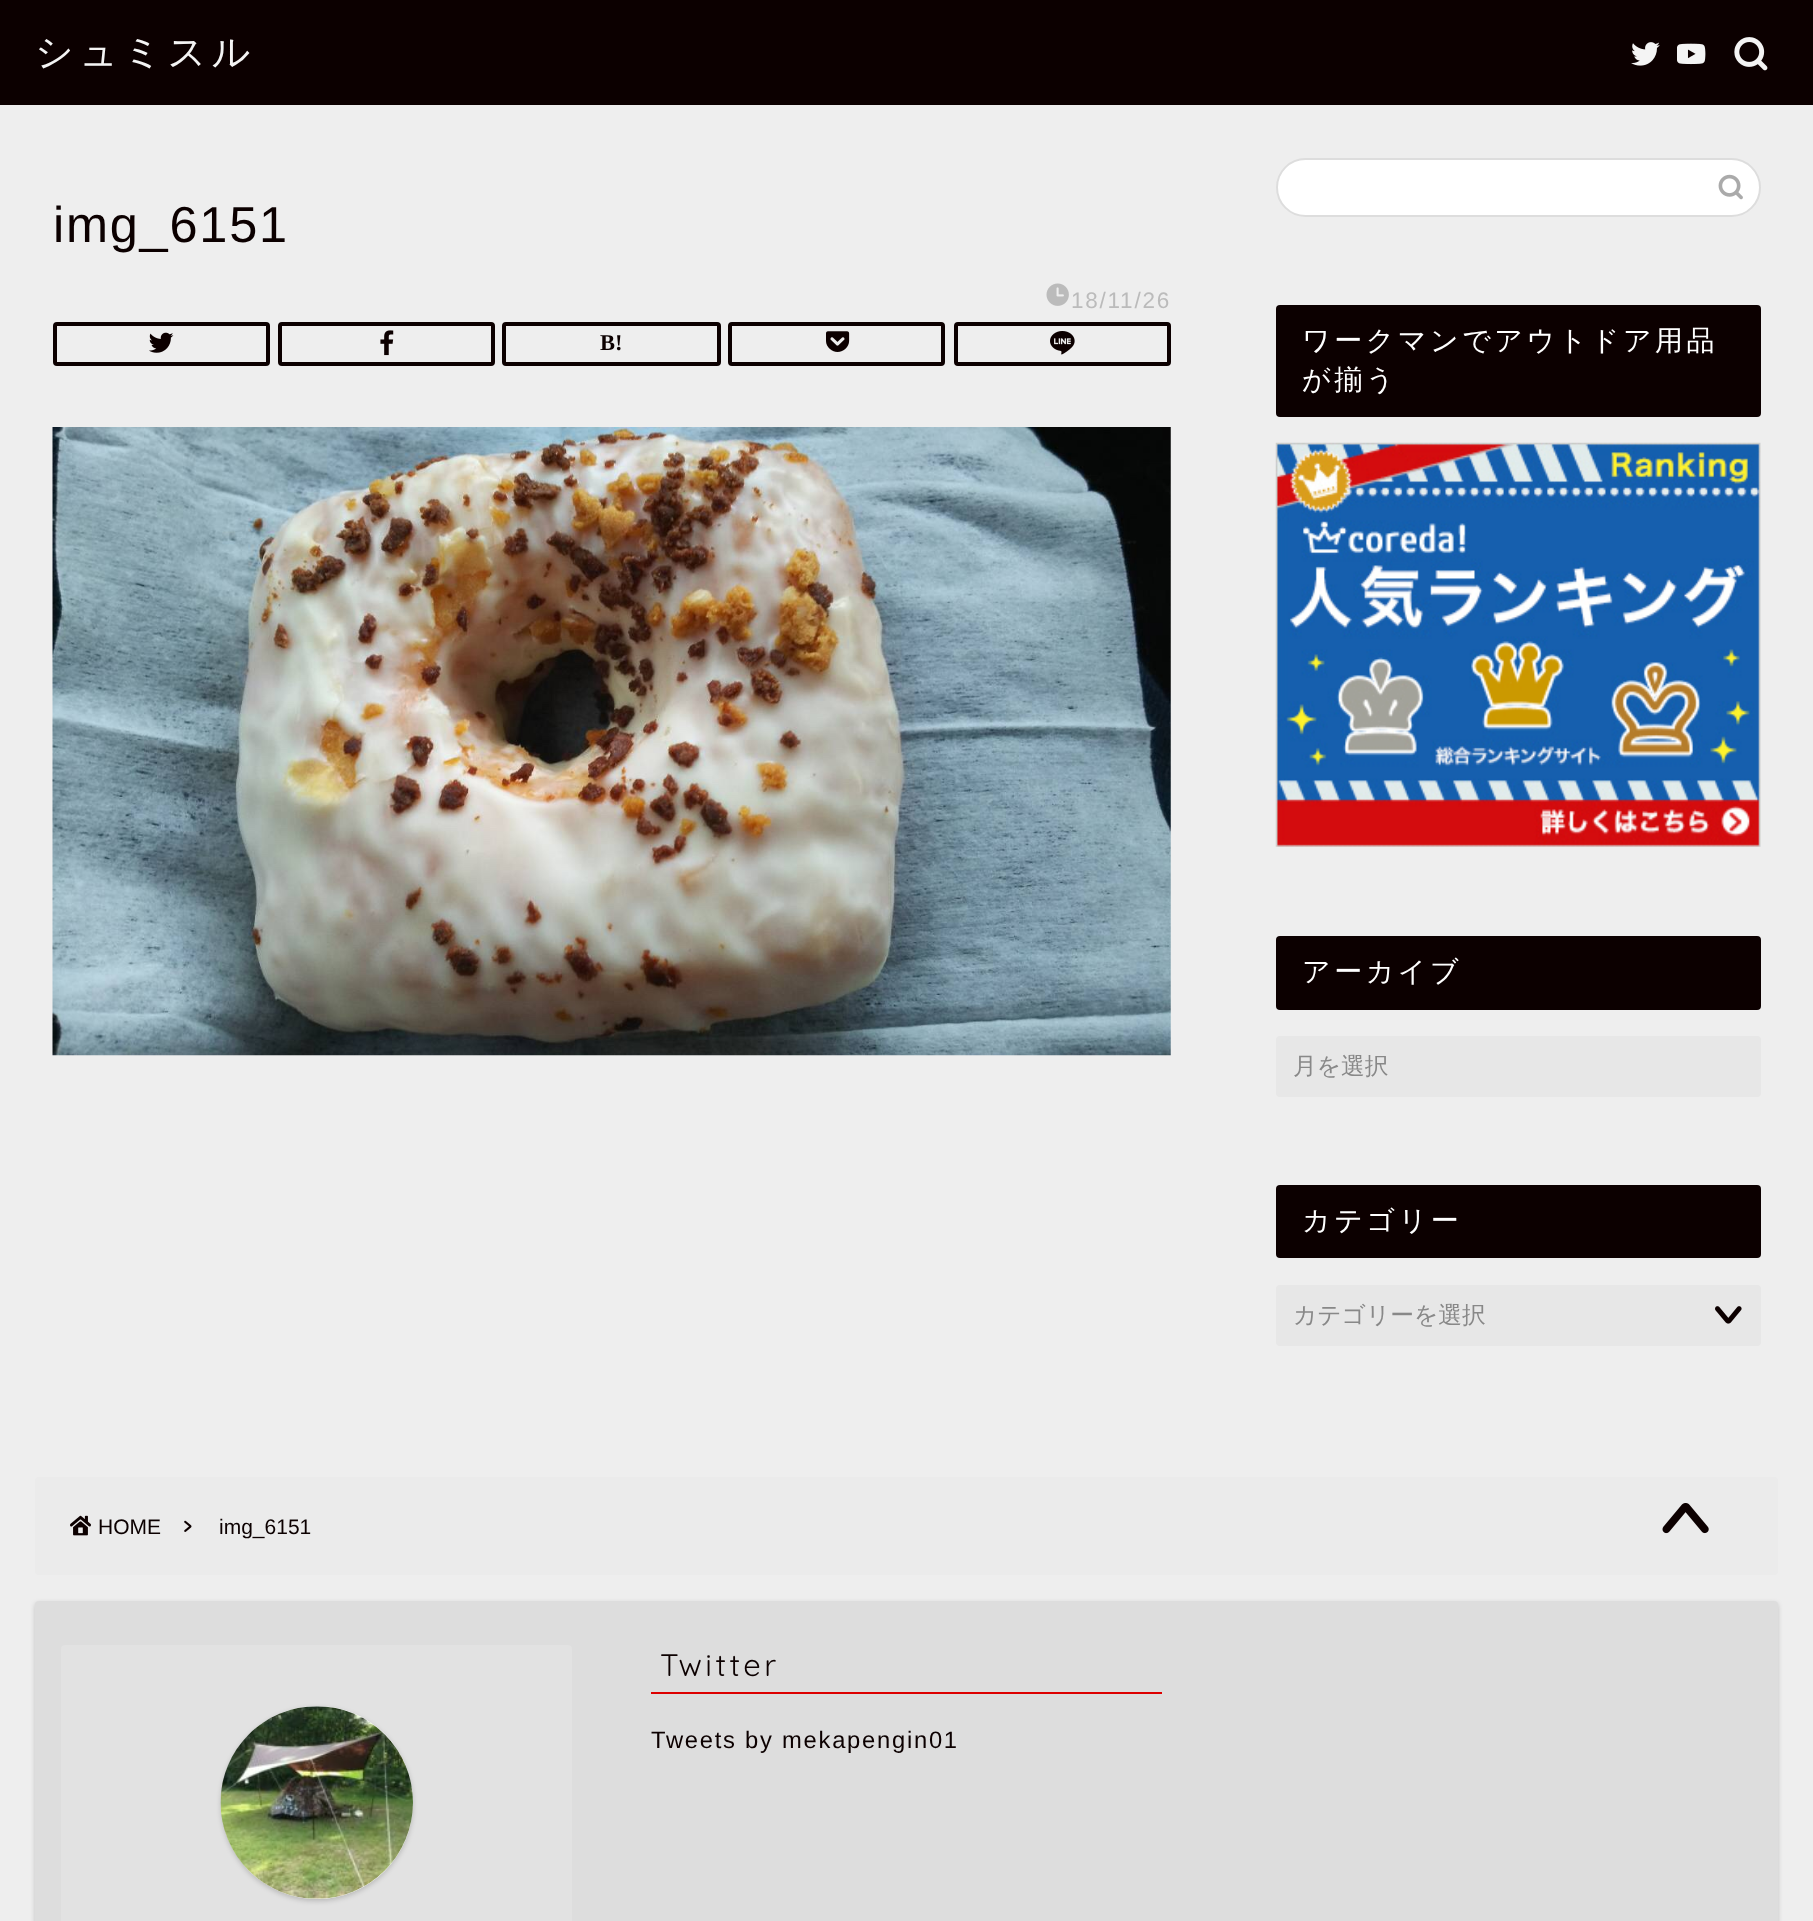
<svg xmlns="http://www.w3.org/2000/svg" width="1813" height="1921">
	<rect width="100%" height="100%" fill="#EEEEEE" />
	<rect x="0" y="0" width="1813" height="105" fill="#0C0000" />
	<text x="35" y="65" font-family="WenQuanYi Zen Hei" font-size="38" font-weight="500" letter-spacing="5.25" fill="#F4F4F4">シュミスル</text>
	<image x="1631" y="42" width="29" height="24" href="assets/img1.png" />
	<image x="1677" y="43" width="29" height="22" href="assets/img2.png" />
	<image x="1734" y="37" width="34" height="34" href="assets/img3.png" />
	<text x="53" y="242" font-family="Liberation Sans" font-size="50.5" letter-spacing="1.75" fill="#0C0000">img_6151</text>
	<image x="1046" y="283" width="23" height="23" href="assets/img4.png" />
	<text x="1071" y="308" font-family="Liberation Sans" font-size="22.5" letter-spacing="1.75" fill="#BBBBBB">18/11/26</text>
	<rect x="55" y="324" width="213" height="40" rx="2" fill="none" stroke="#0C0000" stroke-width="4" />
	<image x="149" y="332" width="25" height="21" href="assets/img5.png" />
	<rect x="280" y="324" width="213" height="40" rx="2" fill="none" stroke="#0C0000" stroke-width="4" />
	<image x="380" y="330" width="14" height="26" href="assets/img6.png" />
	<rect x="504" y="324" width="215" height="40" rx="2" fill="none" stroke="#0C0000" stroke-width="4" />
	<text x="600" y="350" font-family="Liberation Serif" font-size="22.5" font-weight="700" fill="#0C0000">B!</text>
	<rect x="730" y="324" width="213" height="40" rx="2" fill="none" stroke="#0C0000" stroke-width="4" />
	<image x="826" y="331" width="24" height="21" href="assets/img7.png" />
	<rect x="956" y="324" width="213" height="40" rx="2" fill="none" stroke="#0C0000" stroke-width="4" />
	<image x="1050" y="331" width="25" height="24" href="assets/img8.png" />
	<image x="52" y="427" width="1119" height="629" href="assets/img9.png" />
	<rect x="1277" y="159" width="483" height="57" rx="28.5" fill="#FFFFFF" stroke="#DDDDDD" stroke-width="2" />
	<image x="1718" y="174" width="25" height="26" href="assets/img10.png" />
	<rect x="1276" y="305" width="485" height="112" rx="4" fill="#0C0000" />
	<g font-family="WenQuanYi Zen Hei" font-size="28" font-weight="500" letter-spacing="3.5" fill="#FFFFFF">
		<text x="1302" y="350">ワークマンでアウトドア用品</text>
		<text x="1302" y="389">が揃う</text>
	</g>
	<image x="1275" y="442" width="486" height="405" href="assets/img11.png" />
	<rect x="1276" y="936" width="485" height="74" rx="4" fill="#0C0000" />
	<text x="1302" y="981" font-family="WenQuanYi Zen Hei" font-size="28" font-weight="500" letter-spacing="3.5" fill="#FFFFFF">アーカイブ</text>
	<rect x="1276" y="1036" width="485" height="61" rx="4" fill="#E7E7E7" />
	<text x="1293" y="1074" font-family="WenQuanYi Zen Hei" font-size="23.75" font-weight="500" fill="#888888">月を選択</text>
	<rect x="1276" y="1185" width="485" height="73" rx="4" fill="#0C0000" />
	<text x="1302" y="1230" font-family="WenQuanYi Zen Hei" font-size="28" font-weight="500" letter-spacing="3.5" fill="#FFFFFF">カテゴリー</text>
	<rect x="1276" y="1285" width="485" height="61" rx="4" fill="#E7E7E7" />
	<text x="1293" y="1323" font-family="WenQuanYi Zen Hei" font-size="23.75" font-weight="500" fill="#888888">カテゴリーを選択</text>
	<image x="1715" y="1306" width="27" height="18" href="assets/img12.png" />
	<rect x="35" y="1477" width="1743" height="98" rx="4" fill="#EBEBEB" />
	<image x="70" y="1515" width="21" height="21" href="assets/img13.png" />
	<text x="98" y="1534" font-family="Liberation Sans" font-size="21" fill="#0C0000">HOME</text>
	<image x="184" y="1520" width="8" height="12" href="assets/img14.png" />
	<text x="219" y="1534" font-family="Liberation Sans" font-size="21" fill="#0C0000">img_6151</text>
	<image x="1662" y="1503" width="47" height="31" href="assets/img15.png" />
	<rect x="35" y="1603" width="1743" height="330" rx="4" fill="#000000" fill-opacity="0.18" filter="blur(2.5px)" />
	<rect x="35" y="1601" width="1743" height="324" rx="4" fill="#DDDDDD" />
	<rect x="61" y="1645" width="511" height="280" rx="4" fill="#E2E2E2" />
	<rect x="221" y="1708" width="192" height="193" rx="96" fill="#000000" fill-opacity="0.18" filter="blur(2.5px)" />
	<rect x="221" y="1706" width="192" height="193" rx="96" fill="#FFFFFF" />
	<image x="220" y="1706" width="193" height="193" href="assets/img16.png" />
	<rect x="651" y="1692" width="511" height="2" fill="#DD0000" />
	<text x="660" y="1676" font-family="Quicksand" font-size="31" font-weight="300" letter-spacing="3.5" fill="#0C0000">Twitter</text>
	<text x="651" y="1748" font-family="Liberation Sans" font-size="23.75" letter-spacing="1.75" fill="#0C0000">Tweets by mekapengin01</text>
</svg>
